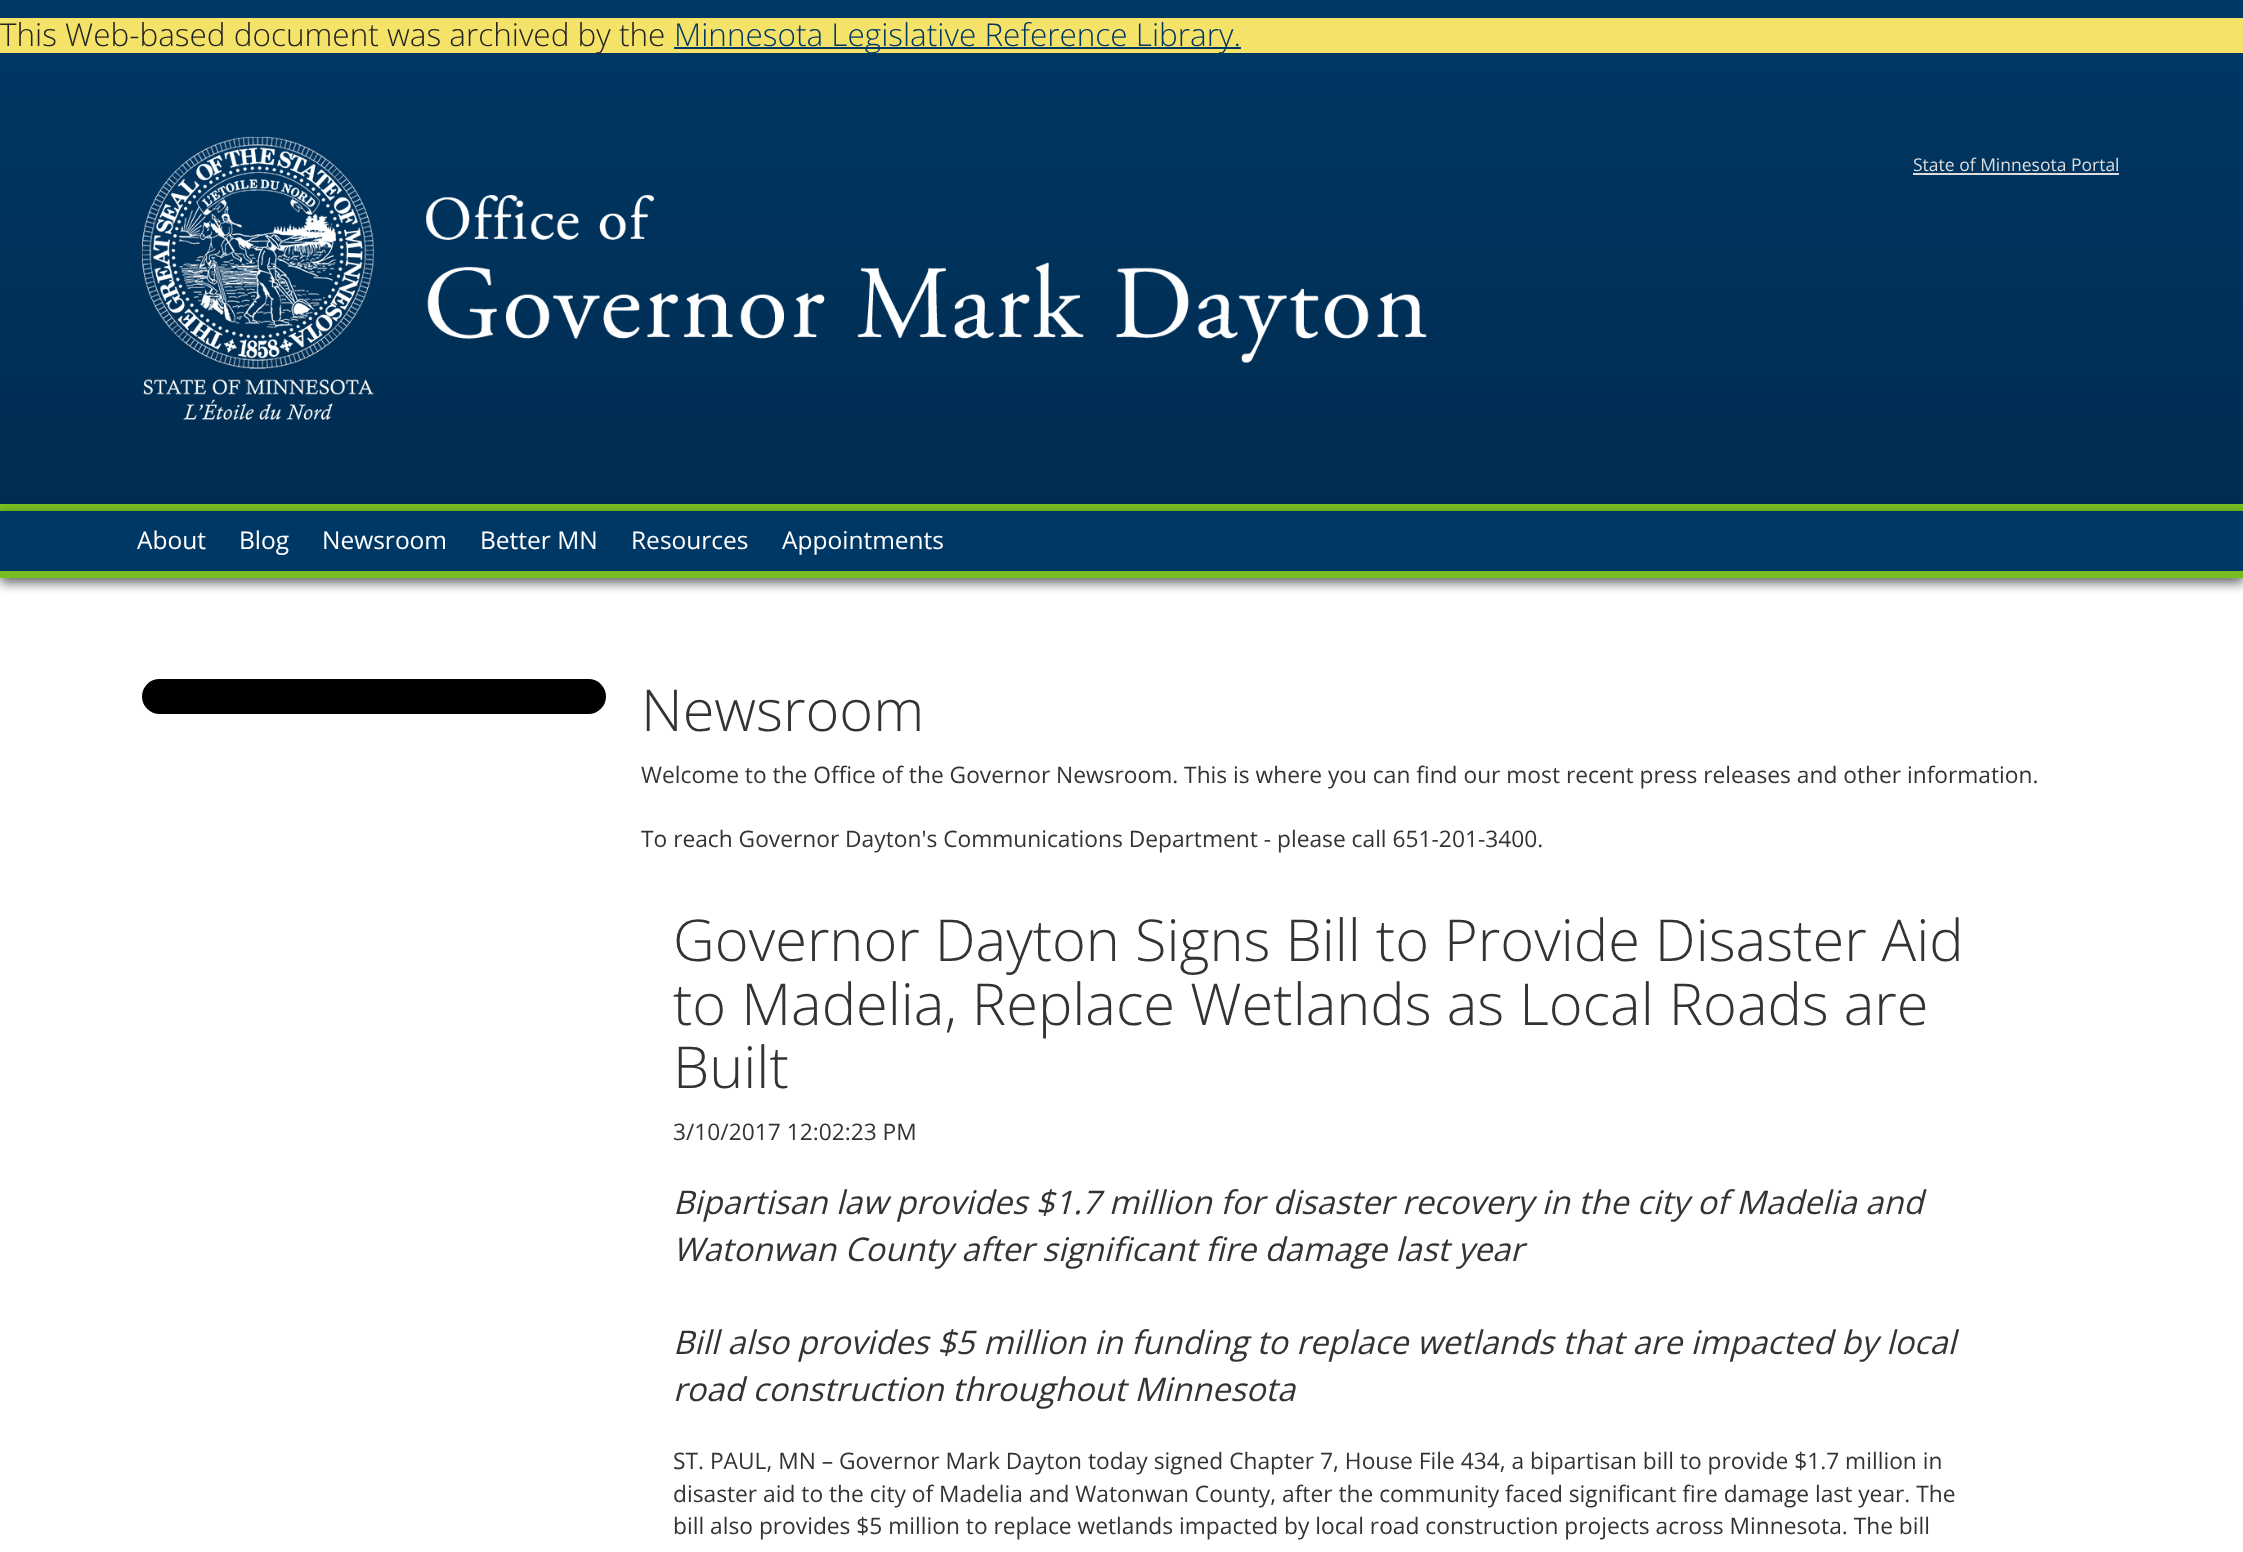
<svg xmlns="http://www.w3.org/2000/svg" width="2243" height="1552">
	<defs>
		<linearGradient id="g1" gradientUnits="userSpaceOnUse" x1="1122" y1="0" x2="1122" y2="504"><stop offset="0" stop-color="#003865" /><stop offset="1" stop-color="#002C50" /></linearGradient>
	</defs>
	<rect width="100%" height="100%" fill="#FFFFFF" />
	<rect x="0" y="0" width="2243" height="504" fill="url(#g1)" />
	<rect x="0" y="504" width="2243" height="7" fill="#78BE21" />
	<rect x="0" y="18" width="2243" height="35" fill="#F4E269" />
	<text x="0" y="46" font-family="Open Sans" font-size="31.5" font-weight="300" fill="#222222">This Web-based document was archived by the</text>
	<rect x="674" y="47" width="567" height="2" fill="#003865" />
	<text x="674" y="46" font-family="Open Sans" font-size="31.5" font-weight="300" fill="#003865">Minnesota Legislative Reference Library.</text>
	<image x="142" y="136" width="1285" height="284" href="assets/img1.png" />
	<text x="1913" y="171" font-family="Open Sans" font-size="17.5" fill="#DDDDDD">State of Minnesota Portal</text>
	<rect x="1913" y="173" width="206" height="2" fill="#DDDDDD" />
	<rect x="0" y="516" width="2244" height="67" fill="#000000" fill-opacity="0.6" filter="blur(6px)" />
	<rect x="0" y="511" width="2243" height="60" fill="#003865" />
	<rect x="0" y="571" width="2243" height="7" fill="#78BE21" />
	<g font-family="Open Sans" font-size="24.5" fill="#FFFFFF">
		<text x="137" y="549">About</text>
		<text x="239" y="549">Blog</text>
		<text x="322" y="549">Newsroom</text>
		<text x="480" y="549">Better MN</text>
		<text x="631" y="549">Resources</text>
		<text x="782" y="549">Appointments</text>
	</g>
	<rect x="142" y="679" width="464" height="35" rx="17.5" fill="#000000" />
	<text x="641" y="731" font-family="Open Sans" font-size="57.75" font-weight="300" fill="#333333">Newsroom</text>
	<g font-family="Open Sans" font-size="22.75" fill="#333333">
		<text x="641" y="783">Welcome to the Office of the Governor Newsroom. This is where you can find our most recent press releases and other information.</text>
		<text x="641" y="847">To reach Governor Dayton's Communications Department - please call 651-201-3400.</text>
	</g>
	<g font-family="Open Sans" font-size="57.75" font-weight="300" fill="#333333">
		<text x="673" y="961">Governor Dayton Signs Bill to Provide Disaster Aid</text>
		<text x="673" y="1025">to Madelia, Replace Wetlands as Local Roads are</text>
		<text x="673" y="1088">Built</text>
	</g>
	<text x="673" y="1140" font-family="Open Sans" font-size="22.75" fill="#333333">3/10/2017 12:02:23 PM</text>
	<g font-family="Open Sans" font-size="32.65" font-style="italic" fill="#333333">
		<text x="673" y="1214">Bipartisan law provides $1.7 million for disaster recovery in the city of Madelia and</text>
		<text x="673" y="1261">Watonwan County after significant fire damage last year</text>
		<text x="673" y="1354">Bill also provides $5 million in funding to replace wetlands that are impacted by local</text>
		<text x="673" y="1401">road construction throughout Minnesota</text>
	</g>
	<g font-family="Open Sans" font-size="22.75" fill="#333333">
		<text x="673" y="1469">ST. PAUL, MN – Governor Mark Dayton today signed Chapter 7, House File 434, a bipartisan bill to provide $1.7 million in</text>
		<text x="673" y="1502">disaster aid to the city of Madelia and Watonwan County, after the community faced significant fire damage last year. The</text>
		<text x="673" y="1534">bill also provides $5 million to replace wetlands impacted by local road construction projects across Minnesota. The bill</text>
	</g>
</svg>
